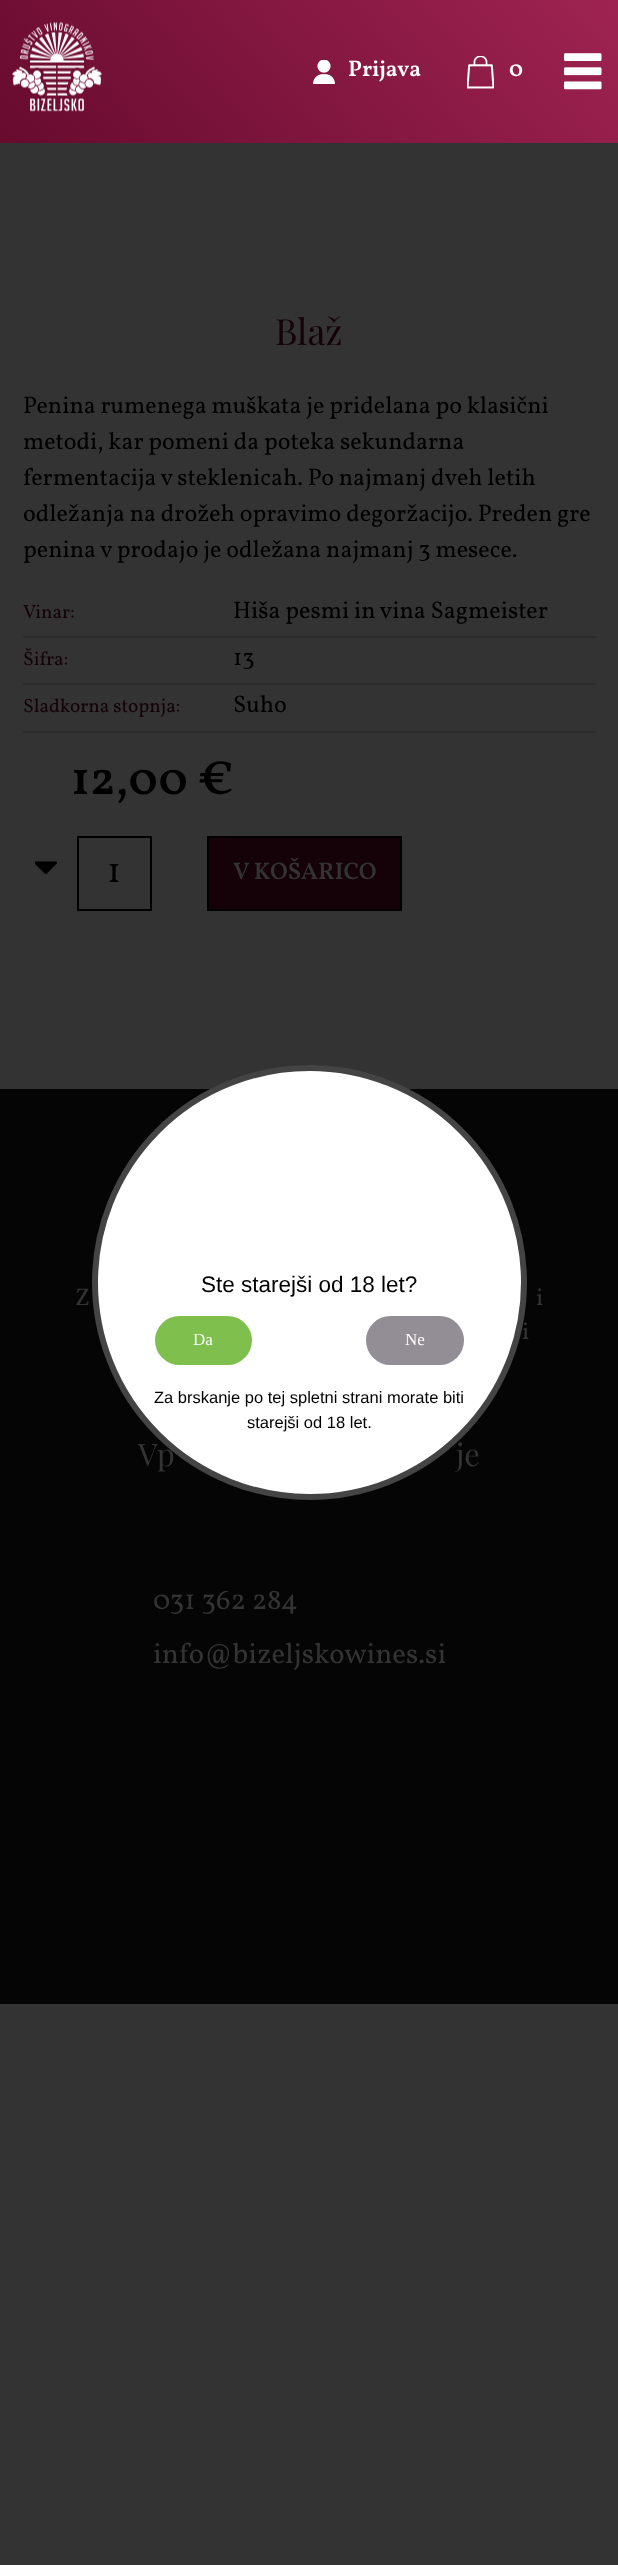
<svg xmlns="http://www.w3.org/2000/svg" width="618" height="2565">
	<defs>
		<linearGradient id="g1" gradientUnits="userSpaceOnUse" x1="103" y1="257" x2="515" y2="-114"><stop offset="0" stop-color="#670B2D" /><stop offset="1" stop-color="#9F2351" /></linearGradient>
	</defs>
	<rect width="100%" height="100%" fill="#333333" />
	<rect x="0" y="0" width="618" height="143" fill="url(#g1)" />
	<image x="12" y="22" width="90" height="90" href="assets/img1.png" />
	<image x="313" y="60" width="22" height="24" href="assets/img2.png" />
	<text x="348" y="76" font-family="Vollkorn" font-size="22.5" font-weight="600" fill="#FFFFFF">Prijava</text>
	<image x="467" y="56" width="27" height="33" href="assets/img3.png" />
	<text x="509" y="76" font-family="Vollkorn" font-size="23" font-weight="600" fill="#FFFFFF">0</text>
	<image x="564" y="53" width="38" height="37" href="assets/img4.png" />
	<text x="275" y="345" font-family="Playfair Display" font-size="36" fill="#150209">Blaž</text>
	<g font-family="Vollkorn" font-size="24" fill="#000000">
		<text x="23" y="413">Penina rumenega muškata je pridelana po klasični</text>
		<text x="23" y="449">metodi, kar pomeni da poteka sekundarna</text>
		<text x="23" y="485">fermentacija v steklenicah. Po najmanj dveh letih</text>
		<text x="23" y="521">odležanja na drožeh opravimo degoržacijo. Preden gre</text>
		<text x="23" y="557">penina v prodajo je odležana najmanj 3 mesece.</text>
	</g>
	<rect x="23" y="636" width="573" height="2" fill="#2C2C2C" />
	<text x="23" y="618" font-family="Vollkorn" font-size="19.25" fill="#150209">Vinar:</text>
	<text x="233" y="618" font-family="Vollkorn" font-size="24" fill="#000000">Hiša pesmi in vina Sagmeister</text>
	<rect x="23" y="683" width="573" height="2" fill="#2C2C2C" />
	<text x="23" y="665" font-family="Vollkorn" font-size="19.25" fill="#150209">Šifra:</text>
	<text x="233" y="665" font-family="Vollkorn" font-size="24" fill="#000000">13</text>
	<rect x="23" y="731" width="573" height="2" fill="#2C2C2C" />
	<text x="23" y="712" font-family="Vollkorn" font-size="19.25" fill="#150209">Sladkorna stopnja:</text>
	<text x="233" y="712" font-family="Vollkorn" font-size="24" fill="#000000">Suho</text>
	<text x="71" y="794" font-family="Vollkorn" font-size="48" font-weight="600" fill="#000000">12,00 €</text>
	<image x="35" y="861" width="22" height="14" href="assets/img5.png" />
	<rect x="78" y="837" width="73" height="73" fill="none" stroke="#000000" stroke-width="2" />
	<text x="107" y="882" font-family="Vollkorn" font-size="36" fill="#000000">1</text>
	<rect x="208" y="837" width="193" height="73" fill="#150209" stroke="#000000" stroke-width="2" />
	<text x="233" y="879" font-family="Vollkorn" font-size="24" font-weight="600" fill="#333333">V KOŠARICO</text>
	<rect x="0" y="1089" width="618" height="915" fill="#060505" />
	<text x="522" y="1339" font-family="Vollkorn" font-size="24" fill="#333333">i</text>
	<g font-family="Playfair Display" font-size="31" fill="#333333">
		<text x="138" y="1466">Vp</text>
		<text x="456" y="1466">je</text>
	</g>
	<circle cx="309.5" cy="1282.5" r="214.5" fill="#FFFFFF" stroke="#444444" stroke-width="6" />
	<text x="201" y="1292" font-family="Liberation Sans" font-size="22.5" fill="#000000">Ste starejši od 18 let?</text>
	<rect x="155" y="1316" width="97" height="49" rx="24.5" fill="#7FBF4D" />
	<text x="193" y="1345" font-family="Liberation Serif" font-size="17" fill="#FFFFFF">Da</text>
	<rect x="366" y="1316" width="98" height="49" rx="24.5" fill="#938D95" />
	<text x="405" y="1345" font-family="Liberation Serif" font-size="17" fill="#FFFFFF">Ne</text>
	<g font-family="Liberation Sans" font-size="16.5" fill="#000000">
		<text x="154" y="1403">Za brskanje po tej spletni strani morate biti</text>
		<text x="247" y="1428">starejši od 18 let.</text>
	</g>
	<g font-family="Vollkorn" font-size="24" fill="#333333">
		<text x="75" y="1305">Z</text>
		<text x="536" y="1305">i</text>
	</g>
	<g font-family="Vollkorn" font-size="28.75" fill="#333333">
		<text x="153" y="1609">031 362 284</text>
		<text x="153" y="1663">info@bizeljskowines.si</text>
	</g>
</svg>
